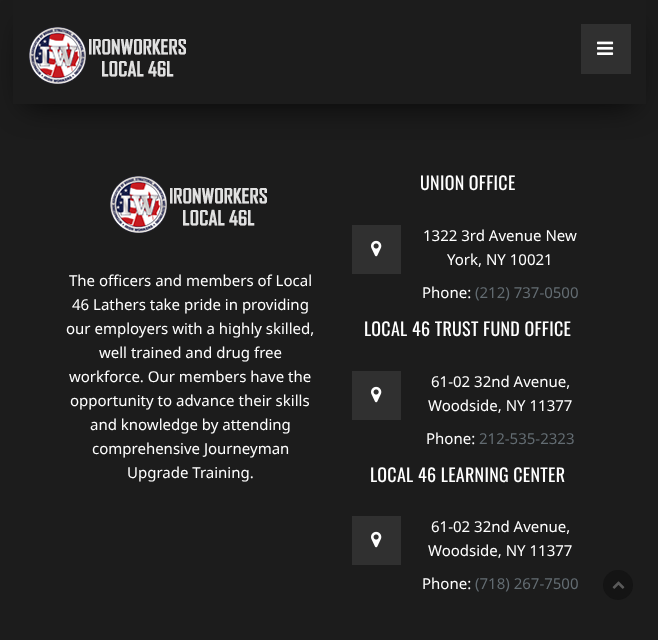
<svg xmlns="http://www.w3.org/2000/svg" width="658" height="640">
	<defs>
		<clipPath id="clip1"><path d="M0 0H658V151H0ZM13 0H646V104H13Z" clip-rule="evenodd" /></clipPath>
	</defs>
	<rect width="100%" height="100%" fill="#1C1C1C" />
	<g clip-path="url(#clip1)">
		<rect x="25" y="25" width="609" height="80" fill="#000000" fill-opacity="0.75" filter="blur(15px)" />
	</g>
	<image x="29" y="27" width="157" height="57" href="assets/img1.png" />
	<rect x="581" y="24" width="50" height="50" fill="#303030" />
	<image x="597" y="41" width="17" height="14" href="assets/img2.png" />
	<image x="110" y="176" width="157" height="57" href="assets/img1.png" />
	<g font-family="Noto Sans" font-size="15" fill="#FFFFFF">
		<text x="69" y="286">The officers and members of Local</text>
		<text x="72" y="310">46 Lathers take pride in providing</text>
		<text x="66" y="334">our employers with a highly skilled,</text>
		<text x="99" y="358">well trained and drug free</text>
		<text x="69" y="382">workforce. Our members have the</text>
		<text x="70" y="406">opportunity to advance their skills</text>
		<text x="90" y="430">and knowledge by attending</text>
		<text x="92" y="454">comprehensive Journeyman</text>
		<text x="127" y="478">Upgrade Training.</text>
	</g>
	<text x="420" y="190" font-family="Oswald" font-size="18" letter-spacing="0.3" fill="#FFFFFF">UNION OFFICE</text>
	<rect x="352" y="225" width="49" height="49" fill="#303030" />
	<image x="371" y="240" width="11" height="17" href="assets/img3.png" />
	<g font-family="Noto Sans" font-size="15" fill="#FFFFFF">
		<text x="423" y="241">1322 3rd Avenue New</text>
		<text x="447" y="265">York, NY 10021</text>
		<text x="422" y="298">Phone:</text>
	</g>
	<text x="475" y="298" font-family="Noto Sans" font-size="15" fill="#636C72">(212) 737-0500</text>
	<text x="364" y="336" font-family="Oswald" font-size="18" letter-spacing="0.3" fill="#FFFFFF">LOCAL 46 TRUST FUND OFFICE</text>
	<rect x="352" y="371" width="49" height="49" fill="#303030" />
	<image x="371" y="386" width="11" height="17" href="assets/img3.png" />
	<g font-family="Noto Sans" font-size="15" fill="#FFFFFF">
		<text x="431" y="387">61-02 32nd Avenue,</text>
		<text x="428" y="411">Woodside, NY 11377</text>
		<text x="426" y="444">Phone:</text>
	</g>
	<text x="479" y="444" font-family="Noto Sans" font-size="15" fill="#636C72">212-535-2323</text>
	<text x="370" y="482" font-family="Oswald" font-size="18" letter-spacing="0.3" fill="#FFFFFF">LOCAL 46 LEARNING CENTER</text>
	<rect x="352" y="516" width="49" height="49" fill="#303030" />
	<image x="371" y="531" width="11" height="17" href="assets/img3.png" />
	<g font-family="Noto Sans" font-size="15" fill="#FFFFFF">
		<text x="431" y="532">61-02 32nd Avenue,</text>
		<text x="428" y="556">Woodside, NY 11377</text>
		<text x="422" y="589">Phone:</text>
	</g>
	<text x="475" y="589" font-family="Noto Sans" font-size="15" fill="#636C72">(718) 267-7500</text>
	<circle cx="618" cy="585" r="15" fill="#141414" />
	<image x="612" y="581" width="13" height="8" href="assets/img4.png" />
</svg>
